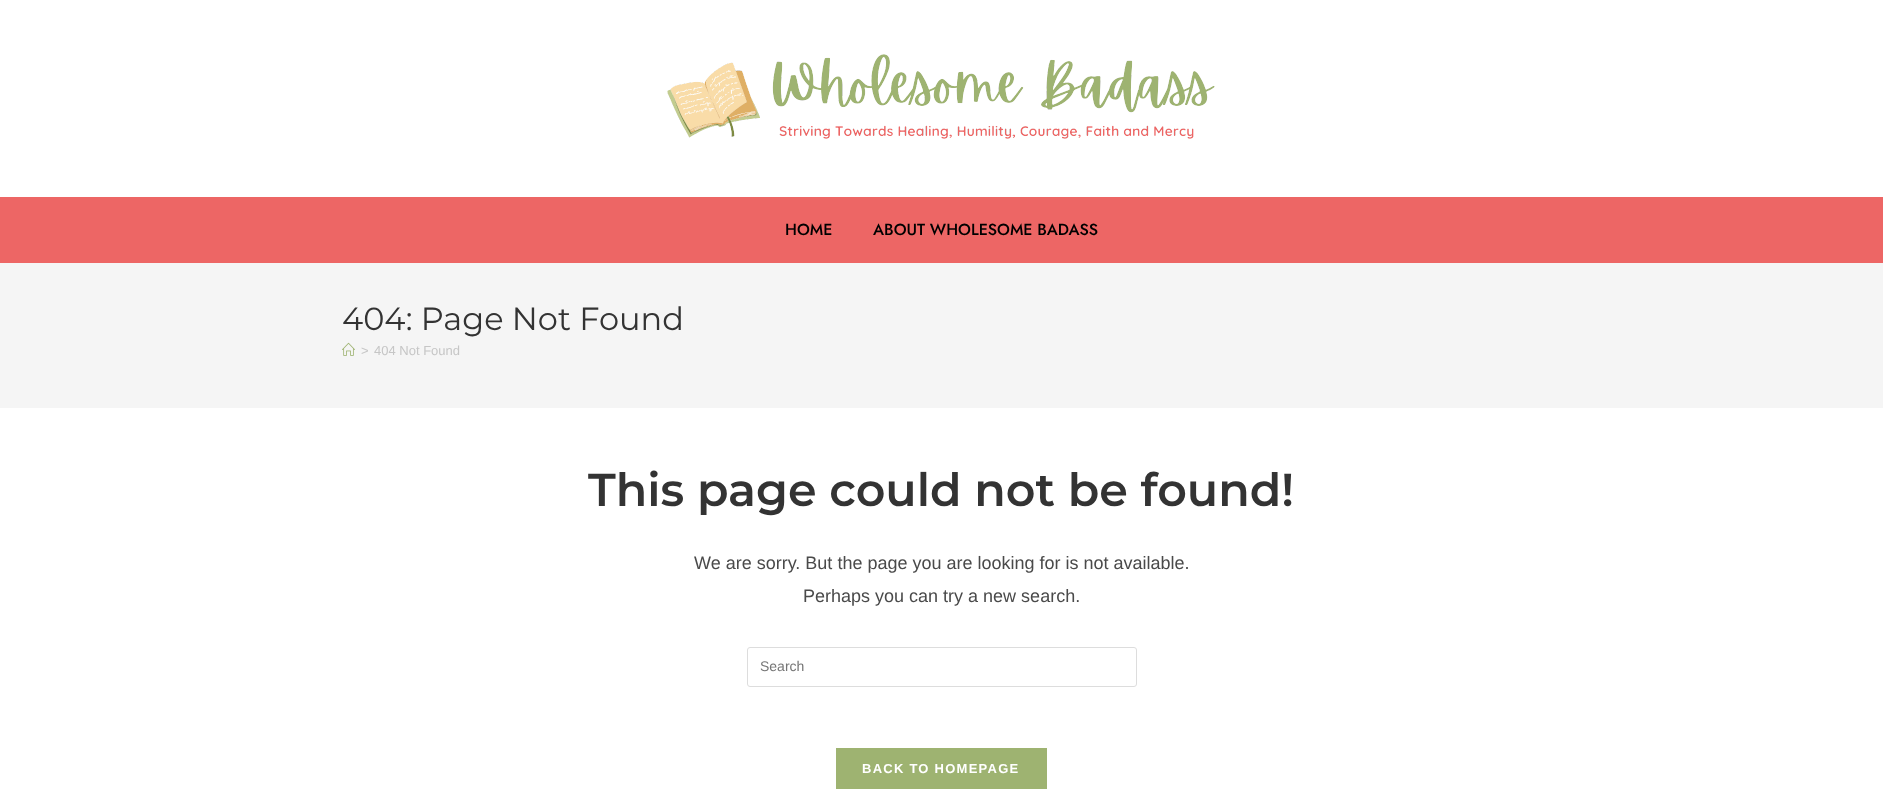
<svg xmlns="http://www.w3.org/2000/svg" width="1883" height="790">
	<rect width="100%" height="100%" fill="#FFFFFF" />
	<image x="667" y="54" width="548" height="85" href="assets/img1.png" />
	<rect x="0" y="197" width="1883" height="66" fill="#ED6665" />
	<g font-family="Jost" font-size="16" font-weight="500" fill="#000000">
		<text x="785" y="235">HOME</text>
		<text x="873" y="235">ABOUT WHOLESOME BADASS</text>
	</g>
	<rect x="0" y="263" width="1883" height="145" fill="#F5F5F5" />
	<text x="342" y="330" font-family="Montserrat" font-size="32" fill="#333333">404: Page Not Found</text>
	<image x="342" y="342" width="13" height="14" href="assets/img2.png" />
	<g font-family="Liberation Sans" font-size="13" fill="#C6C6C6">
		<text x="361" y="355">&gt;</text>
		<text x="374" y="355">404 Not Found</text>
	</g>
	<text x="588" y="506" font-family="Montserrat" font-size="46" font-weight="600" fill="#333333">This page could not be found!</text>
	<g font-family="Liberation Sans" font-size="18" fill="#4A4A4A">
		<text x="694" y="569">We are sorry. But the page you are looking for is not available.</text>
		<text x="803" y="602">Perhaps you can try a new search.</text>
	</g>
	<rect x="747.5" y="647.5" width="389" height="39" rx="2.5" fill="none" stroke="#DDDDDD" />
	<text x="760" y="671" font-family="Liberation Sans" font-size="14" fill="#757575">Search</text>
	<rect x="836" y="748" width="211" height="41" fill="#9EB371" />
	<text x="862" y="773" font-family="Liberation Sans" font-size="13" font-weight="700" letter-spacing="1.25" fill="#FFFFFF">BACK TO HOMEPAGE</text>
</svg>
